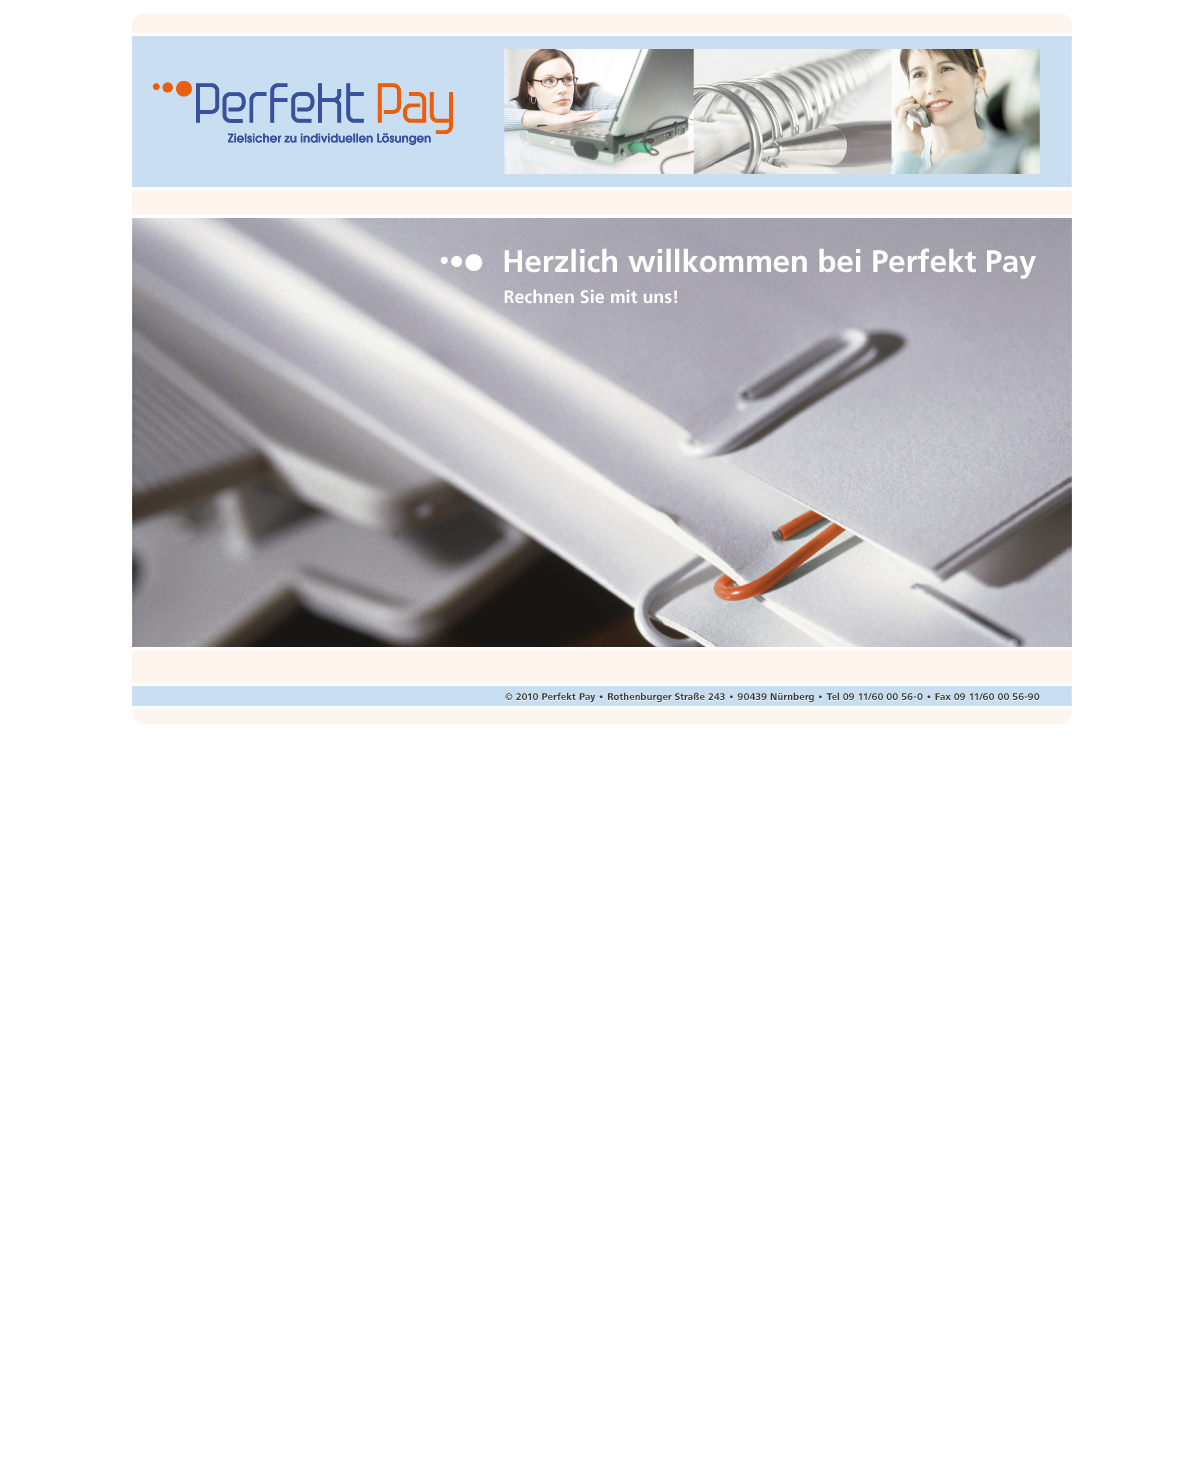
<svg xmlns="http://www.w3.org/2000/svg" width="1203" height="1471">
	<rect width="100%" height="100%" fill="#FFFFFF" />
	<rect x="132" y="195" width="940" height="488" fill="#FEF5EE" />
	<image x="132" y="13" width="940" height="182" href="assets/img1.png" />
	<image x="153" y="81" width="300" height="64" href="assets/img2.png" />
	<image x="503" y="49" width="537" height="125" href="assets/img3.png" />
	<image x="132" y="215" width="940" height="435" href="assets/img4.png" />
	<image x="132" y="683" width="940" height="41" href="assets/img5.png" />
	<image x="503" y="690" width="540" height="15" href="assets/img6.png" />
</svg>
